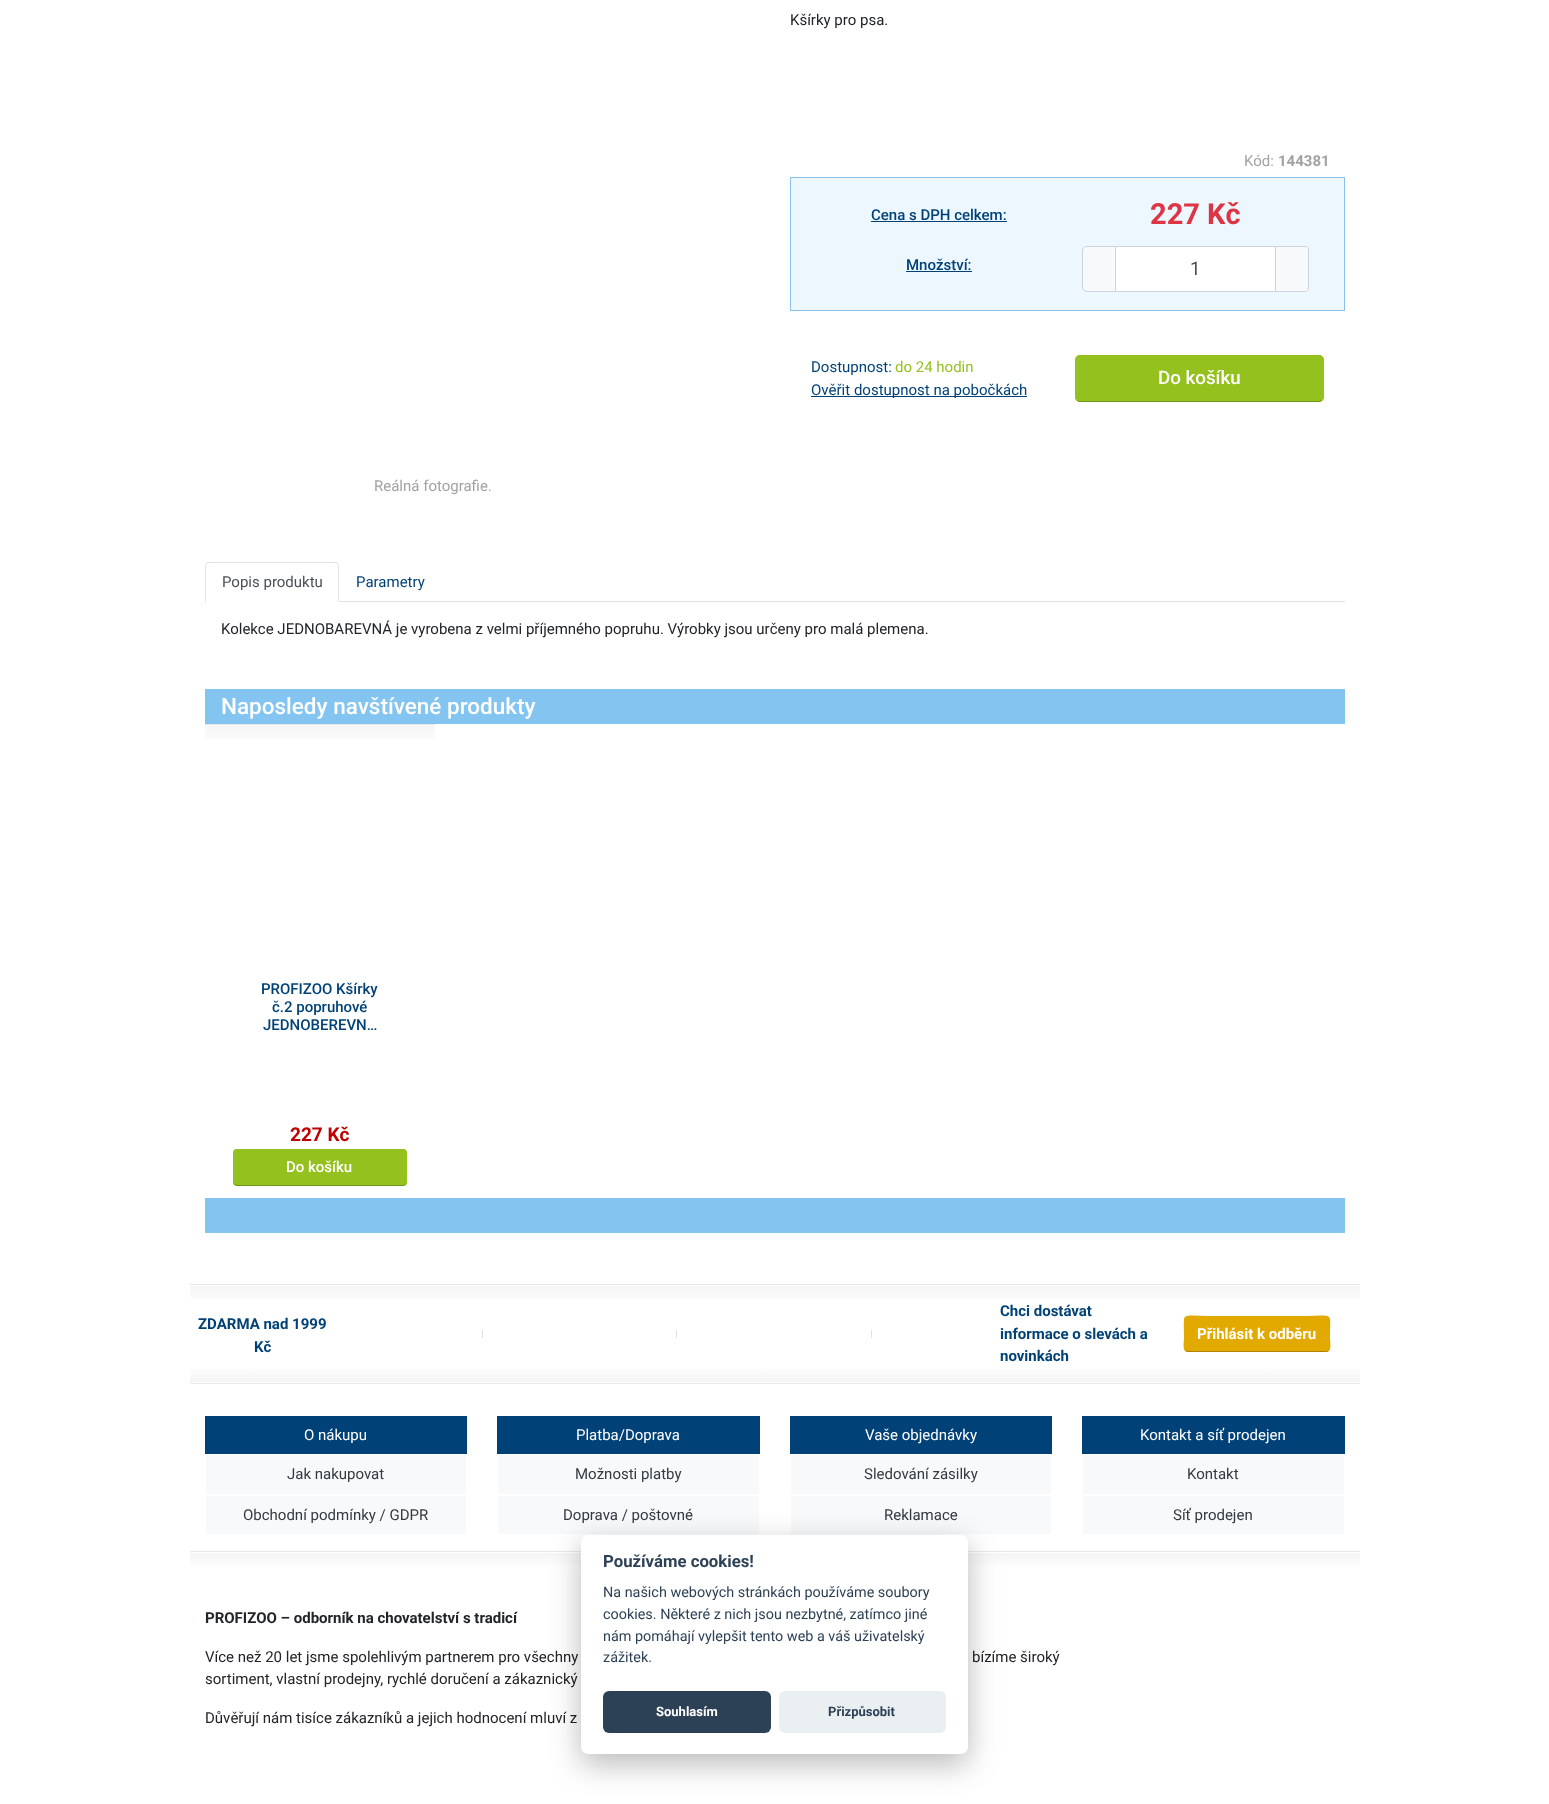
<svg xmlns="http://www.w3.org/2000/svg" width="1549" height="1804">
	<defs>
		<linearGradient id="g1" gradientUnits="userSpaceOnUse" x1="320" y1="725" x2="320" y2="744"><stop offset="0.05" stop-color="#FFFFFF" /><stop offset="0.05" stop-color="#F5F5F5" /><stop offset="1" stop-color="#FFFFFF" /></linearGradient>
		<linearGradient id="g2" gradientUnits="userSpaceOnUse" x1="775" y1="1285" x2="775" y2="1304"><stop offset="0.05" stop-color="#FFFFFF" /><stop offset="0.05" stop-color="#F5F5F5" /><stop offset="1" stop-color="#FFFFFF" /></linearGradient>
		<linearGradient id="g3" gradientUnits="userSpaceOnUse" x1="775" y1="1383" x2="775" y2="1364"><stop offset="0.05" stop-color="#FFFFFF" /><stop offset="0.05" stop-color="#F5F5F5" /><stop offset="1" stop-color="#FFFFFF" /></linearGradient>
		<linearGradient id="g4" gradientUnits="userSpaceOnUse" x1="775" y1="1552" x2="775" y2="1571"><stop offset="0.05" stop-color="#FFFFFF" /><stop offset="0.05" stop-color="#F5F5F5" /><stop offset="1" stop-color="#FFFFFF" /></linearGradient>
	</defs>
	<rect width="100%" height="100%" fill="#FFFFFF" />
	<text x="790" y="25" font-family="Roboto" font-size="15" fill="#212529">Kšírky pro psa.</text>
	<text x="1244" y="166" font-family="Roboto" font-size="15" fill="#A2A2A2">Kód:</text>
	<text x="1278" y="166" font-family="Roboto" font-size="15" font-weight="700" fill="#A2A2A2">144381</text>
	<rect x="790.5" y="177.5" width="554" height="133" fill="#ECF7FF" stroke="#87C3F0" />
	<text x="871" y="220" font-family="Roboto" font-size="15" font-weight="500" fill="#004277">Cena s DPH celkem:</text>
	<rect x="871" y="221" width="136" height="1" fill="#004277" />
	<text x="1150" y="224" font-family="Roboto" font-size="29" font-weight="700" fill="#DC3545">227 Kč</text>
	<text x="906" y="270" font-family="Roboto" font-size="15" font-weight="500" fill="#004277">Množství:</text>
	<rect x="906" y="271" width="66" height="1" fill="#004277" />
	<rect x="1115.5" y="246.5" width="160" height="45" fill="#FFFFFF" stroke="#CED4DA" />
	<path d="M1087 246.5H1115.5V291.5H1087C1084.5 291.5 1082.5 289.5 1082.5 287V251C1082.5 248.5 1084.5 246.5 1087 246.5Z" fill="#F8F9FA" stroke="#CED4DA" />
	<text x="1190" y="275" font-family="Roboto" font-size="18.75" fill="#495057">1</text>
	<path d="M1275.5 246.5H1305C1307 246.5 1308.5 248 1308.5 250V288C1308.5 290 1307 291.5 1305 291.5H1275.5Z" fill="#F8F9FA" stroke="#CED4DA" />
	<text x="811" y="372" font-family="Roboto" font-size="15" fill="#004277">Dostupnost:</text>
	<text x="895" y="372" font-family="Roboto" font-size="15" fill="#95C11F">do 24 hodin</text>
	<rect x="811" y="396" width="216" height="1" fill="#004277" />
	<text x="811" y="395" font-family="Roboto" font-size="15" fill="#004277">Ověřit dostupnost na pobočkách</text>
	<rect x="1075" y="355" width="249" height="47" rx="5" fill="#95C11F" />
	<path d="M1322 400C1321.5 401 1320.5 401.5 1319 401.5H1080C1078.5 401.5 1077.5 401 1077 400" fill="none" stroke="#739518" />
	<path d="M1077 400C1076 399.5 1075.5 398.5 1075.5 397V360C1075.5 358.5 1076 357.5 1077 357C1077.5 356 1078.5 355.5 1080 355.5H1319C1320.5 355.5 1321.5 356 1322 357C1323 357.5 1323.5 358.5 1323.5 360V397C1323.5 398.5 1323 399.5 1322 400" fill="none" stroke="#95C11F" />
	<text x="1158" y="384" font-family="Roboto" font-size="18.75" font-weight="500" fill="#FFFFFF">Do košíku</text>
	<text x="374" y="491" font-family="Roboto" font-size="15" fill="#A2A2A2">Reálná fotografie.</text>
	<rect x="339" y="601" width="1006" height="1" fill="#DEE2E6" />
	<path d="M209 562L206 563L207 564L209 563H335L337 564L338 563L335 562Z" fill="#DEE2E6" />
	<path d="M339 602V566C339 565 338.5 564 338 563L337 564C338 564 338 565 338 566V601Z" fill="#DEE2E6" />
	<path d="M339 602L338 601H206L205 602Z" fill="#FFFFFF" />
	<path d="M205 602L206 601V566C206 565 206 564 207 564L206 563C205.5 564 205 565 205 566Z" fill="#DEE2E6" />
	<text x="222" y="587" font-family="Roboto" font-size="15" fill="#495057">Popis produktu</text>
	<text x="356" y="587" font-family="Roboto" font-size="15" fill="#004277">Parametry</text>
	<text x="221" y="634" font-family="Roboto" font-size="15" fill="#212529">Kolekce JEDNOBAREVNÁ je vyrobena z velmi příjemného popruhu. Výrobky jsou určeny pro malá plemena.</text>
	<rect x="205" y="689" width="1140" height="35" fill="#84C4F0" />
	<text x="221" y="714" font-family="Roboto" font-size="22.5" font-weight="500" fill="#FFFFFF">Naposledy navštívené produkty</text>
	<rect x="205" y="726" width="230" height="13" fill="url(#g1)" />
	<rect x="205" y="724" width="230" height="1" fill="#E8E8E8" />
	<g font-family="Roboto" font-size="15" font-weight="500" fill="#004277">
		<text x="261" y="994">PROFIZOO Kšírky</text>
		<text x="272" y="1012">č.2 popruhové</text>
		<text x="263" y="1030">JEDNOBEREVN…</text>
	</g>
	<text x="290" y="1141" font-family="Roboto" font-size="19" font-weight="700" fill="#BE0000">227 Kč</text>
	<rect x="233" y="1149" width="174" height="37" rx="4" fill="#95C11F" />
	<path d="M405.5 1184.5L403.5 1185.5H264.5H237L234.5 1184.5" fill="none" stroke="#739518" />
	<path d="M234.5 1184.5C234 1184 233.5 1183 233.5 1182V1153C233.5 1152 234 1151 234.5 1150.5C235 1150 236 1149.5 237 1149.5H403C404 1149.5 405 1150 405.5 1150.5C406 1151 406.5 1152 406.5 1153V1182C406.5 1183 406 1184 405.5 1184.5" fill="none" stroke="#95C11F" />
	<text x="286" y="1172" font-family="Roboto" font-size="15" font-weight="500" fill="#FFFFFF">Do košíku</text>
	<rect x="205" y="1198" width="1140" height="35" fill="#84C4F0" />
	<rect x="190" y="1286" width="1170" height="13" fill="url(#g2)" />
	<rect x="190" y="1284" width="1170" height="1" fill="#E8E8E8" />
	<g font-family="Roboto" font-size="15" font-weight="700" fill="#004277">
		<text x="198" y="1329">ZDARMA nad 1999</text>
		<text x="254" y="1352">Kč</text>
	</g>
	<rect x="676" y="1330" width="1" height="8" fill="#DEE2E6" />
	<rect x="482" y="1330" width="1" height="8" fill="#DEE2E6" />
	<rect x="871" y="1330" width="1" height="8" fill="#DEE2E6" />
	<g font-family="Roboto" font-size="15" font-weight="700" fill="#004277">
		<text x="1000" y="1316">Chci dostávat</text>
		<text x="1000" y="1339">informace o slevách a</text>
		<text x="1000" y="1361">novinkách</text>
	</g>
	<rect x="1184" y="1316" width="146" height="36" rx="4" fill="#E2AA00" />
	<path d="M1328.5 1350.5C1328 1351 1327 1351.5 1326 1351.5H1188C1187 1351.5 1186 1351 1185.5 1350.5" fill="none" stroke="#AF8400" />
	<path d="M1185.5 1350.5C1183 1348 1184.5 1341 1184.5 1338.5C1184.5 1310.5 1180 1316.5 1211 1316.5H1303C1334 1316.5 1329.5 1310.5 1329.5 1338.5C1329.5 1341 1331 1348 1328.5 1350.5" fill="none" stroke="#E2AA00" />
	<text x="1197" y="1339" font-family="Roboto" font-size="15" font-weight="700" fill="#FFFFFF">Přihlásit k odběru</text>
	<rect x="190" y="1369" width="1170" height="13" fill="url(#g3)" />
	<rect x="190" y="1383" width="1170" height="1" fill="#E8E8E8" />
	<rect x="205" y="1416" width="262" height="38" fill="#004277" />
	<text x="304" y="1440" font-family="Roboto" font-size="15" fill="#FFFFFF">O nákupu</text>
	<rect x="206" y="1455" width="260" height="79" fill="#F8F9FA" />
	<rect x="205.5" y="1454.5" width="261" height="40" fill="none" stroke="#FFFFFF" />
	<text x="287" y="1479" font-family="Roboto" font-size="15" fill="#343A40">Jak nakupovat</text>
	<rect x="205.5" y="1495.5" width="261" height="39" fill="none" stroke="#FFFFFF" />
	<text x="243" y="1520" font-family="Roboto" font-size="15" fill="#343A40">Obchodní podmínky / GDPR</text>
	<rect x="497" y="1416" width="263" height="38" fill="#004277" />
	<text x="576" y="1440" font-family="Roboto" font-size="15" fill="#FFFFFF">Platba/Doprava</text>
	<rect x="498" y="1455" width="261" height="79" fill="#F8F9FA" />
	<rect x="497.5" y="1454.5" width="262" height="40" fill="none" stroke="#FFFFFF" />
	<text x="575" y="1479" font-family="Roboto" font-size="15" fill="#343A40">Možnosti platby</text>
	<rect x="497.5" y="1495.5" width="262" height="39" fill="none" stroke="#FFFFFF" />
	<text x="563" y="1520" font-family="Roboto" font-size="15" fill="#343A40">Doprava / poštovné</text>
	<rect x="790" y="1416" width="262" height="38" fill="#004277" />
	<text x="865" y="1440" font-family="Roboto" font-size="15" fill="#FFFFFF">Vaše objednávky</text>
	<rect x="791" y="1455" width="260" height="79" fill="#F8F9FA" />
	<rect x="790.5" y="1454.5" width="261" height="40" fill="none" stroke="#FFFFFF" />
	<text x="864" y="1479" font-family="Roboto" font-size="15" fill="#343A40">Sledování zásilky</text>
	<rect x="790.5" y="1495.5" width="261" height="39" fill="none" stroke="#FFFFFF" />
	<text x="884" y="1520" font-family="Roboto" font-size="15" fill="#343A40">Reklamace</text>
	<rect x="1082" y="1416" width="263" height="38" fill="#004277" />
	<text x="1140" y="1440" font-family="Roboto" font-size="15" fill="#FFFFFF">Kontakt a síť prodejen</text>
	<rect x="1083" y="1455" width="261" height="79" fill="#F8F9FA" />
	<rect x="1082.5" y="1454.5" width="262" height="40" fill="none" stroke="#FFFFFF" />
	<text x="1187" y="1479" font-family="Roboto" font-size="15" fill="#343A40">Kontakt</text>
	<rect x="1082.5" y="1495.5" width="262" height="39" fill="none" stroke="#FFFFFF" />
	<text x="1173" y="1520" font-family="Roboto" font-size="15" fill="#343A40">Síť prodejen</text>
	<rect x="190" y="1553" width="1170" height="13" fill="url(#g4)" />
	<rect x="190" y="1551" width="1170" height="1" fill="#E8E8E8" />
	<text x="205" y="1623" font-family="Roboto" font-size="15" font-weight="700" fill="#212529">PROFIZOO – odborník na chovatelství s tradicí</text>
	<g font-family="Roboto" font-size="15" fill="#212529">
		<text x="205" y="1662">Více než 20 let jsme spolehlivým partnerem pro všechny</text>
		<text x="972" y="1662">bízíme široký</text>
		<text x="205" y="1684">sortiment, vlastní prodejny, rychlé doručení a zákaznický</text>
		<text x="205" y="1723">Důvěřují nám tisíce zákazníků a jejich hodnocení mluví z</text>
	</g>
	<rect x="581" y="1545" width="387" height="219" rx="7" fill="#020203" fill-opacity="0.28" filter="blur(15px)" />
	<rect x="581" y="1535" width="387" height="219" rx="7" fill="#FFFFFF" />
	<text x="603" y="1567" font-family="Roboto" font-size="16.75" font-weight="700" fill="#2D4156">Používáme cookies!</text>
	<g font-family="Roboto" font-size="14.4" fill="#2D4156">
		<text x="603" y="1597">Na našich webových stránkách používáme soubory</text>
		<text x="603" y="1619">cookies. Některé z nich jsou nezbytné, zatímco jiné</text>
		<text x="603" y="1641">nám pomáhají vylepšit tento web a váš uživatelský</text>
		<text x="603" y="1662">zážitek.</text>
	</g>
	<rect x="603" y="1691" width="168" height="42" rx="6" fill="#2D4156" />
	<text x="656" y="1716" font-family="Roboto" font-size="13" font-weight="700" fill="#FFFFFF">Souhlasím</text>
	<rect x="779" y="1691" width="167" height="42" rx="6" fill="#EAEFF2" />
	<text x="828" y="1716" font-family="Roboto" font-size="13" font-weight="700" fill="#2D4156">Přizpůsobit</text>
</svg>
